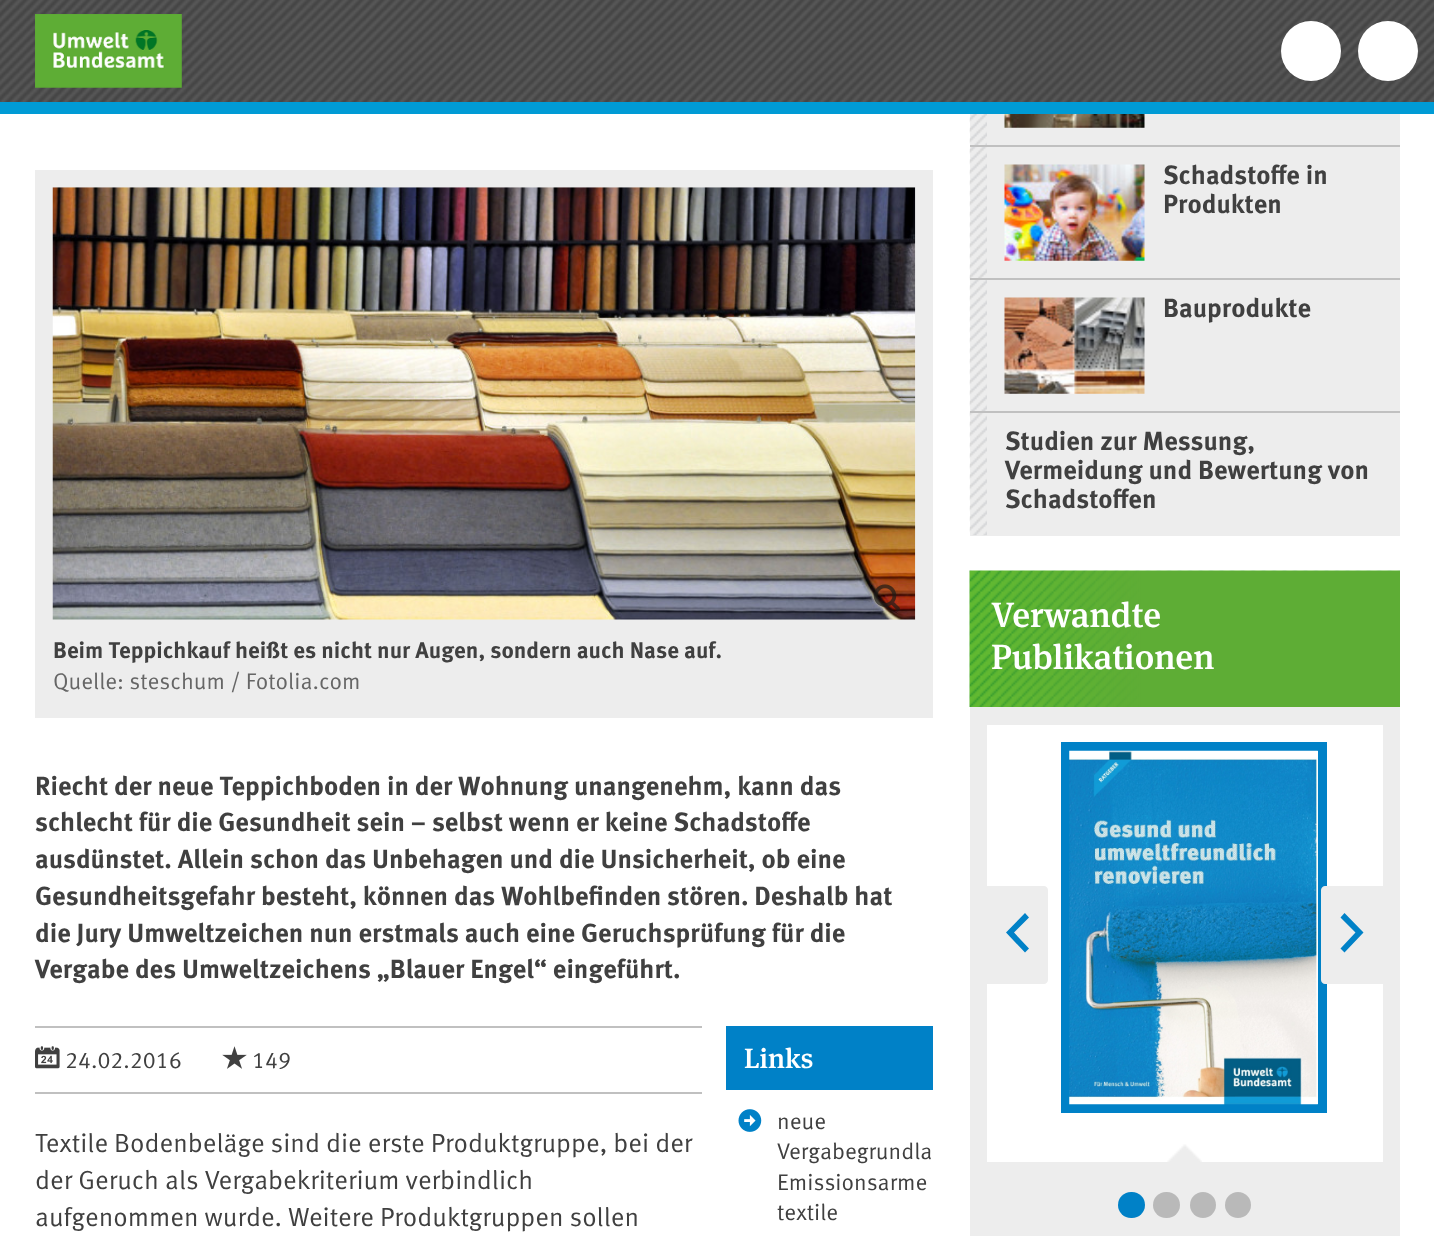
<svg xmlns="http://www.w3.org/2000/svg" width="1434" height="1236">
	<rect width="100%" height="100%" fill="#FFFFFF" />
	<image x="0" y="0" width="1434" height="102" href="assets/img1.png" />
	<rect x="0" y="102" width="1434" height="12" fill="#009BD5" />
	<image x="35" y="14" width="147" height="74" href="assets/img2.png" />
	<circle cx="1311" cy="51" r="30" fill="#FFFFFF" />
	<circle cx="1388" cy="51" r="30" fill="#FFFFFF" />
	<rect x="970" y="114" width="17" height="422" fill="#EDEDED" />
	<image x="969" y="114" width="18" height="422" href="assets/img3.png" />
	<rect x="987" y="114" width="413" height="31" fill="#EDEDED" />
	<image x="1004" y="114" width="141" height="14" href="assets/img4.png" />
	<rect x="970" y="145" width="430" height="2" fill="#C0C0C0" />
	<rect x="987" y="147" width="413" height="131" fill="#EDEDED" />
	<image x="1004" y="164" width="141" height="97" href="assets/img5.png" />
	<g font-family="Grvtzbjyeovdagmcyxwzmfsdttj" font-size="26.25" font-weight="700" fill="#404040">
		<text x="1163" y="184">Schadstoffe in</text>
		<text x="1163" y="213">Produkten</text>
	</g>
	<rect x="970" y="278" width="430" height="2" fill="#C0C0C0" />
	<rect x="987" y="280" width="413" height="131" fill="#EDEDED" />
	<image x="1004" y="297" width="141" height="97" href="assets/img6.png" />
	<text x="1163" y="317" font-family="Grvtzbjyeovdagmcyxwzmfsdttj" font-size="26.25" font-weight="700" fill="#404040">Bauprodukte</text>
	<rect x="970" y="411" width="430" height="2" fill="#C0C0C0" />
	<rect x="987" y="413" width="413" height="123" fill="#EDEDED" />
	<g font-family="Grvtzbjyeovdagmcyxwzmfsdttj" font-size="26.25" font-weight="700" fill="#404040">
		<text x="1005" y="450">Studien zur Messung,</text>
		<text x="1005" y="479">Vermeidung und Bewertung von</text>
		<text x="1005" y="508">Schadstoffen</text>
	</g>
	<image x="969" y="570" width="431" height="137" href="assets/img7.png" />
	<g font-family="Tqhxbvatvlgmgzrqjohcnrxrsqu" font-size="35" font-weight="500" fill="#FFFFFF">
		<text x="991" y="627">Verwandte</text>
		<text x="991" y="669">Publikationen</text>
	</g>
	<rect x="970" y="707" width="430" height="529" fill="#EDEDED" />
	<rect x="987" y="725" width="396" height="437" fill="#FFFFFF" />
	<path d="M987 886H1044C1046 886 1048 888 1048 890V980C1048 982 1046 984 1044 984H987Z" fill="#EDEDED" />
	<path d="M1006 932.5L1025 913L1029 917.5L1014 932.5L1029 948.5L1025 952.5Z" fill="#0081C7" />
	<image x="1167" y="1144" width="35" height="18" href="assets/img8.png" />
	<rect x="1065.5" y="746.5" width="257" height="362" fill="none" stroke="#0081C7" stroke-width="9" />
	<image x="1069" y="750" width="249" height="355" href="assets/img9.png" />
	<path d="M1325 886H1383V984H1325C1323 984 1321 982 1321 980V890C1321 888 1323 886 1325 886Z" fill="#EDEDED" />
	<path d="M1344.5 952.5L1340.5 948.5L1355.5 932.5L1340.5 917.5L1344.5 913L1363.5 932.5Z" fill="#0081C7" />
	<rect x="1118" y="1192" width="27" height="26" rx="13" fill="#0081C7" />
	<rect x="1153" y="1192" width="27" height="26" rx="13" fill="#B9B9B9" />
	<circle cx="1203" cy="1205" r="13" fill="#B9B9B9" />
	<circle cx="1238" cy="1205" r="13" fill="#B9B9B9" />
	<rect x="35" y="170" width="898" height="548" fill="#EDEDED" />
	<image x="52" y="187" width="864" height="433" href="assets/img10.png" />
	<image x="873" y="584" width="27" height="27" href="assets/img11.png" />
	<text x="53" y="658" font-family="Grvtzbjyeovdagmcyxwzmfsdttj" font-size="22.75" font-weight="700" fill="#404040">Beim Teppichkauf heißt es nicht nur Augen, sondern auch Nase auf.</text>
	<text x="53" y="689" font-family="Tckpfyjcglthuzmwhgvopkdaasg" font-size="22.75" fill="#666666">Quelle: steschum / Fotolia.com</text>
	<g font-family="Grvtzbjyeovdagmcyxwzmfsdttj" font-size="26.25" font-weight="700" fill="#404040">
		<text x="35" y="795">Riecht der neue Teppichboden in der Wohnung unangenehm, kann das</text>
		<text x="35" y="831">schlecht für die Gesundheit sein – selbst wenn er keine Schadstoffe</text>
		<text x="35" y="868">ausdünstet. Allein schon das Unbehagen und die Unsicherheit, ob eine</text>
		<text x="35" y="905">Gesundheitsgefahr besteht, können das Wohlbefinden stören. Deshalb hat</text>
		<text x="35" y="942">die Jury Umweltzeichen nun erstmals auch eine Geruchsprüfung für die</text>
		<text x="35" y="978">Vergabe des Umweltzeichens „Blauer Engel“ eingeführt.</text>
	</g>
	<rect x="35" y="1026" width="667" height="2" fill="#C0C0C0" />
	<rect x="35" y="1092" width="667" height="2" fill="#C0C0C0" />
	<image x="35" y="1046" width="25" height="23" href="assets/img12.png" />
	<text x="65" y="1068" font-family="Tckpfyjcglthuzmwhgvopkdaasg" font-size="22.75" fill="#404040">24.02.2016</text>
	<image x="222" y="1046" width="25" height="23" href="assets/img13.png" />
	<text x="252" y="1068" font-family="Tckpfyjcglthuzmwhgvopkdaasg" font-size="22.75" fill="#404040">149</text>
	<g font-family="Tckpfyjcglthuzmwhgvopkdaasg" font-size="26.25" fill="#404040">
		<text x="35" y="1152">Textile Bodenbeläge sind die erste Produktgruppe, bei der</text>
		<text x="35" y="1189">der Geruch als Vergabekriterium verbindlich</text>
		<text x="35" y="1226">aufgenommen wurde. Weitere Produktgruppen sollen</text>
	</g>
	<rect x="726" y="1026" width="207" height="64" fill="#0081C7" />
	<text x="744" y="1068" font-family="Tqhxbvatvlgmgzrqjohcnrxrsqu" font-size="28" font-weight="500" fill="#FFFFFF">Links</text>
	<image x="738" y="1109" width="24" height="23" href="assets/img14.png" />
	<g font-family="Tckpfyjcglthuzmwhgvopkdaasg" font-size="22.75" fill="#404040">
		<text x="777" y="1129">neue</text>
		<text x="777" y="1159">Vergabegrundla</text>
		<text x="777" y="1190">Emissionsarme</text>
		<text x="777" y="1220">textile</text>
	</g>
</svg>
